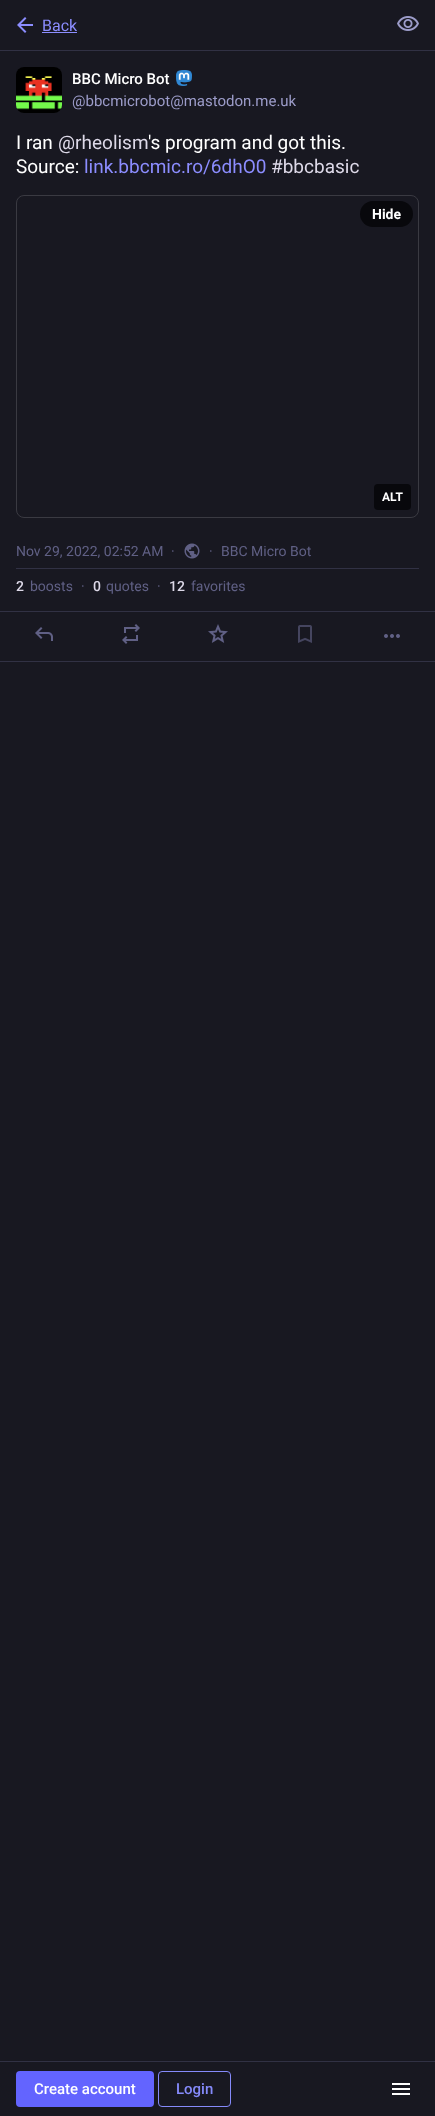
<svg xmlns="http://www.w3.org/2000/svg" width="435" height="2116">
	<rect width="100%" height="100%" fill="#181821" />
	<rect x="0" y="50" width="435" height="1" fill="#313144" />
	<image x="17" y="17" width="16" height="16" href="assets/img1.png" />
	<text x="42" y="31" font-family="Roboto" font-size="16" fill="#8C8DFF">Back</text>
	<rect x="42" y="32" width="35" height="1" fill="#8C8DFF" />
	<image x="397" y="16" width="22" height="15" href="assets/img2.png" />
	<rect x="16" y="67" width="46" height="46" rx="8" fill="#20202C" />
	<image x="16" y="67" width="46" height="46" href="assets/img3.png" />
	<text x="72" y="84" font-family="Roboto" font-size="15" font-weight="500" fill="#FFFFFF">BBC Micro Bot</text>
	<image x="176" y="70" width="16" height="16" href="assets/img4.png" />
	<text x="72" y="106" font-family="Roboto" font-size="15" fill="#9C9CC9">@bbcmicrobot@mastodon.me.uk</text>
	<text x="16" y="149" font-family="Roboto" font-size="19" fill="#FFFFFF">I ran</text>
	<text x="58" y="149" font-family="Roboto" font-size="19" fill="#DDD9E8">@rheolism</text>
	<g font-family="Roboto" font-size="19" fill="#FFFFFF">
		<text x="148" y="149">'s program and got this.</text>
		<text x="16" y="173">Source:</text>
	</g>
	<text x="84" y="173" font-family="Roboto" font-size="19" fill="#8C8DFF">link.bbcmic.ro/6dhO0</text>
	<text x="271" y="173" font-family="Roboto" font-size="19" fill="#DDD9E8">#bbcbasic</text>
	<rect x="16.5" y="195.5" width="402" height="322" rx="7.5" fill="none" stroke="#3A3A42" />
	<rect x="360" y="201" width="53" height="26" rx="13" fill="#08080C" />
	<text x="372" y="219" font-family="Roboto" font-size="14" font-weight="700" fill="#FFFFFF">Hide</text>
	<rect x="374" y="484" width="37" height="26" rx="4" fill="#08080C" />
	<text x="382" y="501" font-family="Roboto" font-size="12" font-weight="700" fill="#FFFFFF">ALT</text>
	<rect x="16" y="568" width="403" height="1" fill="#313144" />
	<g font-family="Roboto" font-size="14" fill="#606085">
		<text x="16" y="556">Nov 29, 2022, 02:52 AM</text>
		<text x="171" y="556">·</text>
	</g>
	<image x="184" y="543" width="16" height="16" href="assets/img5.png" />
	<g font-family="Roboto" font-size="14" fill="#606085">
		<text x="209" y="556">·</text>
		<text x="221" y="556">BBC Micro Bot</text>
	</g>
	<text x="16" y="591" font-family="Roboto" font-size="14" font-weight="500" fill="#DDD9E8">2</text>
	<g font-family="Roboto" font-size="14" fill="#606085">
		<text x="30" y="591">boosts</text>
		<text x="81" y="591">·</text>
	</g>
	<text x="93" y="591" font-family="Roboto" font-size="14" font-weight="500" fill="#DDD9E8">0</text>
	<g font-family="Roboto" font-size="14" fill="#606085">
		<text x="106" y="591">quotes</text>
		<text x="157" y="591">·</text>
	</g>
	<text x="169" y="591" font-family="Roboto" font-size="14" font-weight="500" fill="#DDD9E8">12</text>
	<text x="191" y="591" font-family="Roboto" font-size="14" fill="#606085">favorites</text>
	<rect x="0" y="611" width="435" height="1" fill="#313144" />
	<rect x="0" y="661" width="435" height="1" fill="#313144" />
	<image x="35" y="627" width="18" height="14" href="assets/img6.png" />
	<image x="122" y="624" width="18" height="20" href="assets/img7.png" />
	<image x="208" y="624" width="20" height="19" href="assets/img8.png" />
	<image x="298" y="625" width="14" height="18" href="assets/img9.png" />
	<image x="384" y="634" width="16" height="4" href="assets/img10.png" />
	<rect x="0" y="2061" width="435" height="1" fill="#313144" />
	<rect x="16" y="2071" width="138" height="36" rx="4" fill="#6364FF" />
	<text x="34" y="2094" font-family="Roboto" font-size="15" font-weight="500" fill="#FFFFFF">Create account</text>
	<rect x="158.5" y="2071.5" width="72" height="35" rx="3.5" fill="none" stroke="#858AFA" />
	<text x="176" y="2094" font-family="Roboto" font-size="15" font-weight="500" fill="#858AFA">Login</text>
	<image x="392" y="2083" width="18" height="12" href="assets/img11.png" />
</svg>
